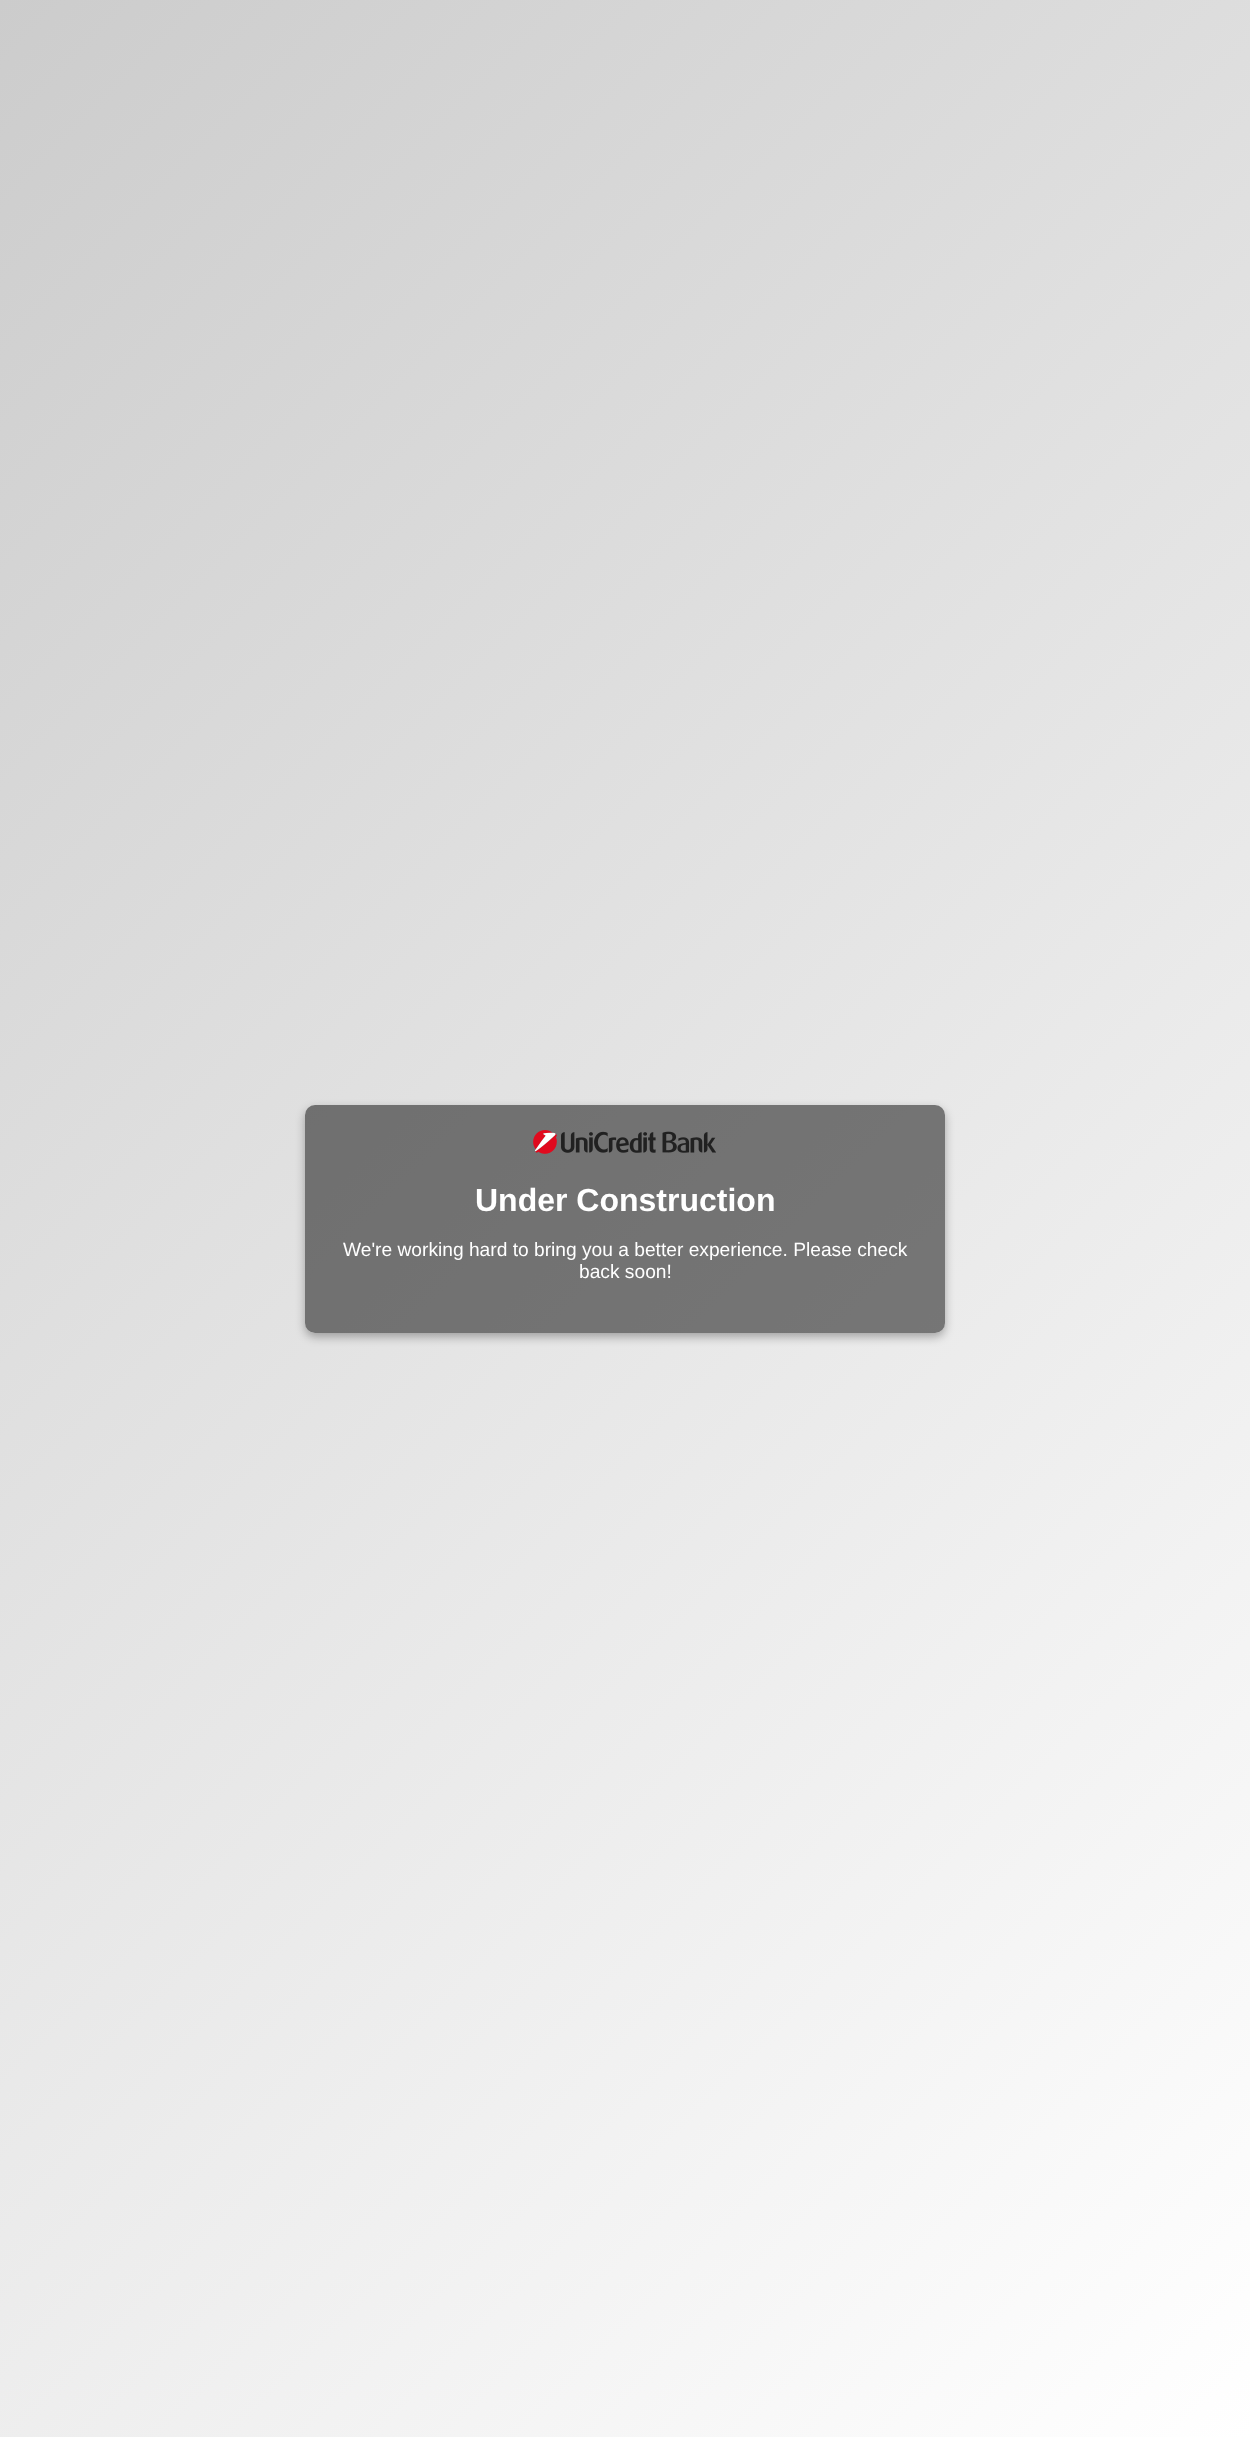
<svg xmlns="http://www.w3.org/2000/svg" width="1250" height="2437">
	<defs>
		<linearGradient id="g1" gradientUnits="userSpaceOnUse" x1="-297" y1="297" x2="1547" y2="2140"><stop offset="0" stop-color="#CCCCCC" /><stop offset="1" stop-color="#FFFFFF" /></linearGradient>
		<clipPath id="clip1"><path d="M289 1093H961V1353H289ZM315 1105H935C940.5 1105 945 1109.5 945 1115V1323C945 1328.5 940.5 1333 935 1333H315C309.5 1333 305 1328.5 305 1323V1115C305 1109.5 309.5 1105 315 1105Z" clip-rule="evenodd" /></clipPath>
	</defs>
	<rect width="100%" height="100%" fill="#FFFFFF" />
	<rect x="0" y="0" width="1250" height="2437" fill="url(#g1)" />
	<g clip-path="url(#clip1)">
		<rect x="305" y="1109" width="640" height="228" rx="10" fill="#000000" fill-opacity="0.3" filter="blur(5px)" />
	</g>
	<rect x="305" y="1105" width="640" height="228" rx="10" fill="#000000" fill-opacity="0.5" />
	<image x="533" y="1130" width="183" height="24" href="assets/img1.png" />
	<text x="475" y="1211" font-family="Liberation Sans" font-size="32" font-weight="700" fill="#FFFFFF">Under Construction</text>
	<g font-family="Liberation Sans" font-size="19.2" fill="#FFFFFF">
		<text x="343" y="1256">We're working hard to bring you a better experience. Please check</text>
		<text x="579" y="1278">back soon!</text>
	</g>
</svg>
